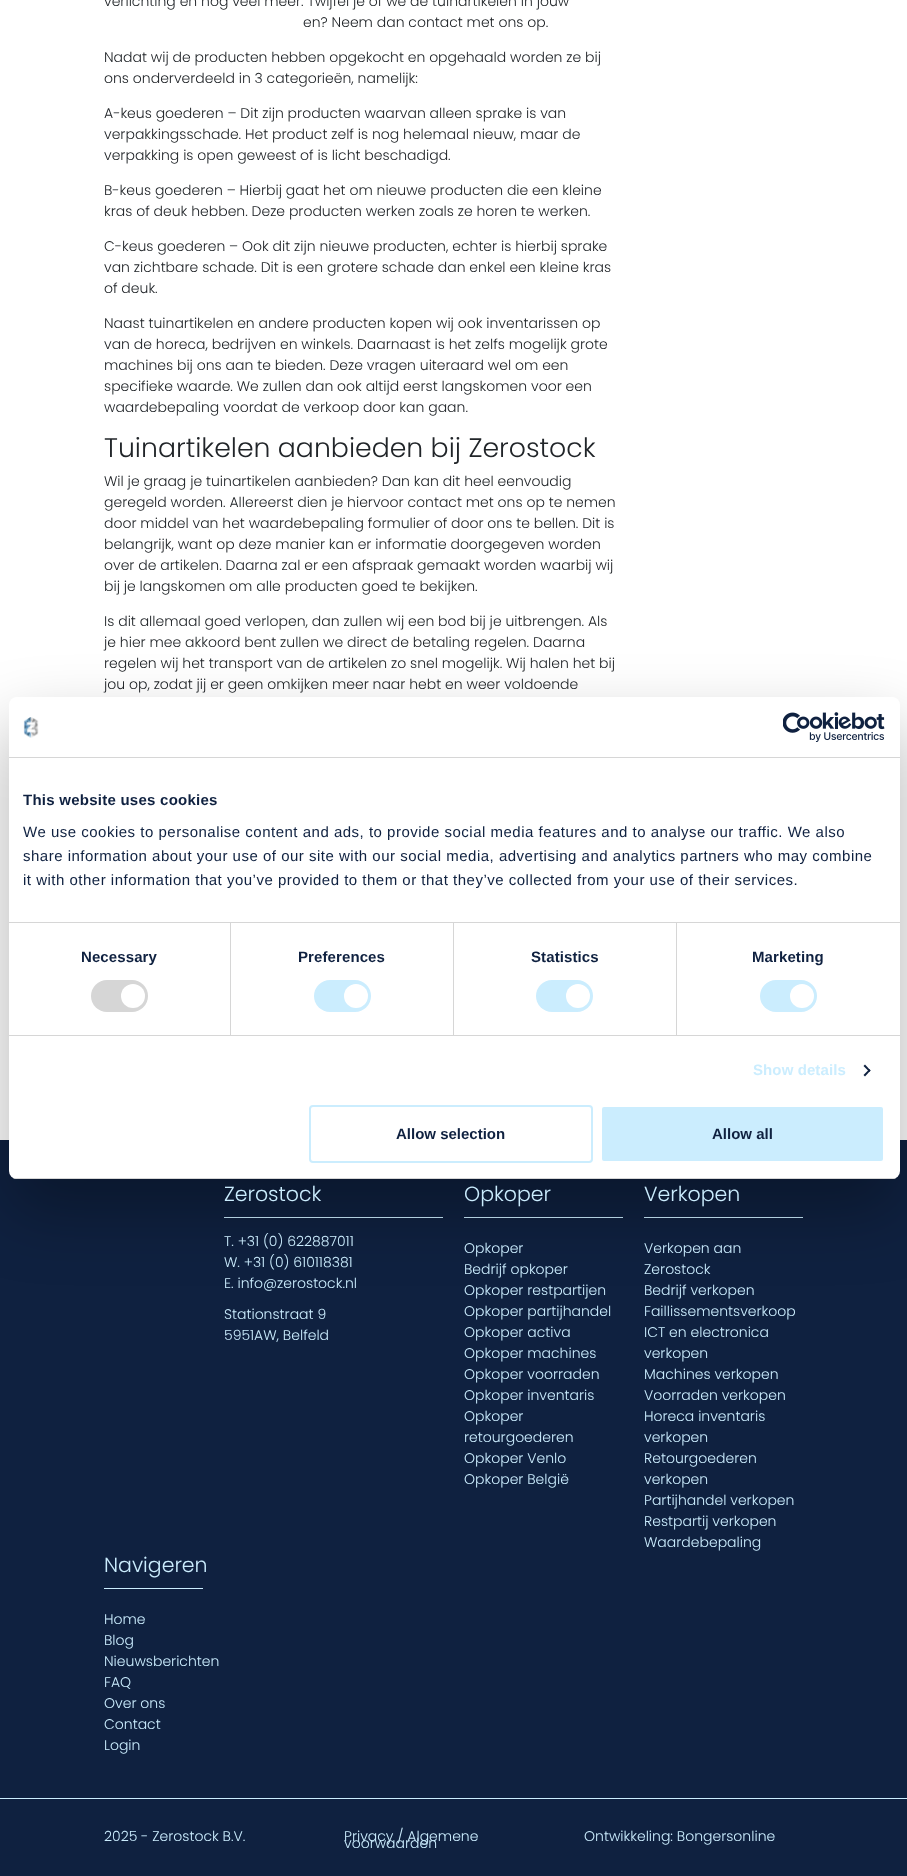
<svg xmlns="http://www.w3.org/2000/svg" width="907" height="1876">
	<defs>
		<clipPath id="clip1"><rect x="9" y="697" width="891" height="482" rx="8" /></clipPath>
	</defs>
	<rect width="100%" height="100%" fill="#FFFFFF" />
	<g font-family="Poppins" font-size="14" font-weight="300" fill="#212529">
		<text x="104" y="6">verlichting en nog veel meer. Twijfel je of we de tuinartikelen in jouw</text>
		<text x="303" y="27">en? Neem dan contact met ons op.</text>
		<text x="104" y="62">Nadat wij de producten hebben opgekocht en opgehaald worden ze bij</text>
		<text x="104" y="83">ons onderverdeeld in 3 categorieën, namelijk:</text>
		<text x="104" y="118">A-keus goederen – Dit zijn producten waarvan alleen sprake is van</text>
		<text x="104" y="139">verpakkingsschade. Het product zelf is nog helemaal nieuw, maar de</text>
		<text x="104" y="160">verpakking is open geweest of is licht beschadigd.</text>
		<text x="104" y="195">B-keus goederen – Hierbij gaat het om nieuwe producten die een kleine</text>
		<text x="104" y="216">kras of deuk hebben. Deze producten werken zoals ze horen te werken.</text>
		<text x="104" y="251">C-keus goederen – Ook dit zijn nieuwe producten, echter is hierbij sprake</text>
		<text x="104" y="272">van zichtbare schade. Dit is een grotere schade dan enkel een kleine kras</text>
		<text x="104" y="293">of deuk.</text>
		<text x="104" y="328">Naast tuinartikelen en andere producten kopen wij ook inventarissen op</text>
		<text x="104" y="349">van de horeca, bedrijven en winkels. Daarnaast is het zelfs mogelijk grote</text>
		<text x="104" y="370">machines bij ons aan te bieden. Deze vragen uiteraard wel om een</text>
		<text x="104" y="391">specifieke waarde. We zullen dan ook altijd eerst langskomen voor een</text>
		<text x="104" y="412">waardebepaling voordat de verkoop door kan gaan.</text>
	</g>
	<text x="104" y="457" font-family="Poppins" font-size="26.75" font-weight="300" fill="#212529">Tuinartikelen aanbieden bij Zerostock</text>
	<g font-family="Poppins" font-size="14" font-weight="300" fill="#212529">
		<text x="104" y="486">Wil je graag je tuinartikelen aanbieden? Dan kan dit heel eenvoudig</text>
		<text x="104" y="507">geregeld worden. Allereerst dien je hiervoor contact met ons op te nemen</text>
		<text x="104" y="528">door middel van het waardebepaling formulier of door ons te bellen. Dit is</text>
		<text x="104" y="549">belangrijk, want op deze manier kan er informatie doorgegeven worden</text>
		<text x="104" y="570">over de artikelen. Daarna zal er een afspraak gemaakt worden waarbij wij</text>
		<text x="104" y="591">bij je langskomen om alle producten goed te bekijken.</text>
		<text x="104" y="626">Is dit allemaal goed verlopen, dan zullen wij een bod bij je uitbrengen. Als</text>
		<text x="104" y="647">je hier mee akkoord bent zullen we direct de betaling regelen. Daarna</text>
		<text x="104" y="668">regelen wij het transport van de artikelen zo snel mogelijk. Wij halen het bij</text>
		<text x="104" y="689">jou op, zodat jij er geen omkijken meer naar hebt en weer voldoende</text>
	</g>
	<image x="105" y="21" width="199" height="10" href="assets/img1.png" />
	<rect x="0" y="1140" width="907" height="736" fill="#0F2140" />
	<rect x="224" y="1217" width="219" height="1" fill="#CBEDFE" />
	<rect x="464" y="1217" width="159" height="1" fill="#CBEDFE" />
	<rect x="644" y="1217" width="159" height="1" fill="#CBEDFE" />
	<rect x="9" y="729" width="891" height="482" rx="8" fill="#000000" fill-opacity="0.3" filter="blur(34px)" />
	<rect x="9" y="697" width="891" height="482" rx="8" fill="#FFFFFF" />
	<rect x="9" y="757" width="891" height="1" fill="#D6D6D6" />
	<image x="23" y="717" width="16" height="21" href="assets/img2.png" />
	<image x="783" y="712" width="102" height="30" href="assets/img3.png" />
	<rect x="9" y="922" width="891" height="1" fill="#D6D6D6" />
	<text x="23" y="805" font-family="Liberation Sans" font-size="15" font-weight="700" letter-spacing="0.25" fill="#0F2140">This website uses cookies</text>
	<g font-family="Liberation Sans" font-size="15" letter-spacing="0.5" fill="#0F2140">
		<text x="23" y="837">We use cookies to personalise content and ads, to provide social media features and to analyse our traffic. We also</text>
		<text x="23" y="861">share information about your use of our site with our social media, advertising and analytics partners who may combine</text>
		<text x="23" y="885">it with other information that you’ve provided to them or that they’ve collected from your use of their services.</text>
	</g>
	<rect x="9" y="1035" width="891" height="1" fill="#D6D6D6" />
	<rect x="230" y="923" width="1" height="112" fill="#D6D6D6" />
	<text x="81" y="962" font-family="Liberation Sans" font-size="15" font-weight="700" letter-spacing="0.1" fill="#0F2140">Necessary</text>
	<rect x="91" y="980" width="57" height="32" rx="16" fill="#D6D6D6" />
	<circle cx="133" cy="996" r="12" fill="#FFFFFF" />
	<rect x="453" y="923" width="1" height="112" fill="#D6D6D6" />
	<text x="298" y="962" font-family="Liberation Sans" font-size="15" font-weight="700" letter-spacing="0.1" fill="#0F2140">Preferences</text>
	<rect x="314" y="980" width="57" height="32" rx="16" fill="#CBEDFE" />
	<circle cx="356" cy="996" r="12" fill="#FFFFFF" />
	<rect x="676" y="923" width="1" height="112" fill="#D6D6D6" />
	<text x="531" y="962" font-family="Liberation Sans" font-size="15" font-weight="700" letter-spacing="0.1" fill="#0F2140">Statistics</text>
	<rect x="536" y="980" width="57" height="32" rx="16" fill="#CBEDFE" />
	<circle cx="578" cy="996" r="12" fill="#FFFFFF" />
	<text x="752" y="962" font-family="Liberation Sans" font-size="15" font-weight="700" letter-spacing="0.1" fill="#0F2140">Marketing</text>
	<rect x="760" y="980" width="57" height="32" rx="16" fill="#CBEDFE" />
	<circle cx="802" cy="996" r="12" fill="#FFFFFF" />
	<text x="753" y="1075" font-family="Liberation Sans" font-size="15" font-weight="700" letter-spacing="0.1" fill="#CBEDFE">Show details</text>
	<path d="M865 1064.5L870.5 1070.5L869.5 1072L863.5 1066Z" fill="#0F2140" />
	<path d="M869.5 1069L870.5 1070.5L865 1076.5L863.5 1075Z" fill="#0F2140" />
	<g clip-path="url(#clip1)">
		<rect x="9" y="1178" width="891" height="1" fill="#D6D6D6" />
	</g>
	<rect x="310" y="1106" width="282" height="56" rx="3" fill="none" stroke="#CBEDFE" stroke-width="2" />
	<text x="396" y="1139" font-family="Liberation Sans" font-size="15" font-weight="700" fill="#0F2140">Allow selection</text>
	<rect x="601" y="1106" width="283" height="56" rx="3" fill="#CBEDFE" stroke="#FFFFFF" stroke-width="2" />
	<text x="712" y="1139" font-family="Liberation Sans" font-size="15" font-weight="700" fill="#0F2140">Allow all</text>
	<text x="224" y="1201" font-family="Poppins" font-size="20.5" font-weight="300" fill="#CBEDFE">Zerostock</text>
	<g font-family="Poppins" font-size="14" font-weight="300" fill="#CBEDFE">
		<text x="224" y="1246">T. +31 (0) 622887011</text>
		<text x="224" y="1267">W. +31 (0) 610118381</text>
		<text x="224" y="1288">E. info@zerostock.nl</text>
		<text x="224" y="1319">Stationstraat 9</text>
		<text x="224" y="1340">5951AW, Belfeld</text>
	</g>
	<text x="464" y="1201" font-family="Poppins" font-size="20.5" font-weight="300" fill="#CBEDFE">Opkoper</text>
	<g font-family="Poppins" font-size="14" font-weight="300" fill="#CBEDFE">
		<text x="464" y="1253">Opkoper</text>
		<text x="464" y="1274">Bedrijf opkoper</text>
		<text x="464" y="1295">Opkoper restpartijen</text>
		<text x="464" y="1316">Opkoper partijhandel</text>
		<text x="464" y="1337">Opkoper activa</text>
		<text x="464" y="1358">Opkoper machines</text>
		<text x="464" y="1379">Opkoper voorraden</text>
		<text x="464" y="1400">Opkoper inventaris</text>
		<text x="464" y="1421">Opkoper</text>
		<text x="464" y="1442">retourgoederen</text>
		<text x="464" y="1463">Opkoper Venlo</text>
		<text x="464" y="1484">Opkoper België</text>
	</g>
	<text x="644" y="1201" font-family="Poppins" font-size="20.5" font-weight="300" fill="#CBEDFE">Verkopen</text>
	<g font-family="Poppins" font-size="14" font-weight="300" fill="#CBEDFE">
		<text x="644" y="1253">Verkopen aan</text>
		<text x="644" y="1274">Zerostock</text>
		<text x="644" y="1295">Bedrijf verkopen</text>
		<text x="644" y="1316">Faillissementsverkoop</text>
		<text x="644" y="1337">ICT en electronica</text>
		<text x="644" y="1358">verkopen</text>
		<text x="644" y="1379">Machines verkopen</text>
		<text x="644" y="1400">Voorraden verkopen</text>
		<text x="644" y="1421">Horeca inventaris</text>
		<text x="644" y="1442">verkopen</text>
		<text x="644" y="1463">Retourgoederen</text>
		<text x="644" y="1484">verkopen</text>
		<text x="644" y="1505">Partijhandel verkopen</text>
		<text x="644" y="1526">Restpartij verkopen</text>
		<text x="644" y="1547">Waardebepaling</text>
	</g>
	<rect x="104" y="1588" width="99" height="1" fill="#CBEDFE" />
	<text x="104" y="1572" font-family="Poppins" font-size="20.5" font-weight="300" fill="#CBEDFE">Navigeren</text>
	<g font-family="Poppins" font-size="14" font-weight="300" fill="#CBEDFE">
		<text x="104" y="1624">Home</text>
		<text x="104" y="1645">Blog</text>
		<text x="104" y="1666">Nieuwsberichten</text>
		<text x="104" y="1687">FAQ</text>
		<text x="104" y="1708">Over ons</text>
		<text x="104" y="1729">Contact</text>
		<text x="104" y="1750">Login</text>
	</g>
	<rect x="0" y="1798" width="907" height="1" fill="#CBEDFE" />
	<g font-family="Poppins" font-size="14" font-weight="300" fill="#CBEDFE">
		<text x="104" y="1841">2025 - Zerostock B.V.</text>
		<text x="344" y="1841">Privacy / Algemene</text>
		<text x="344" y="1848">voorwaarden</text>
		<text x="584" y="1841">Ontwikkeling: Bongersonline</text>
	</g>
</svg>
